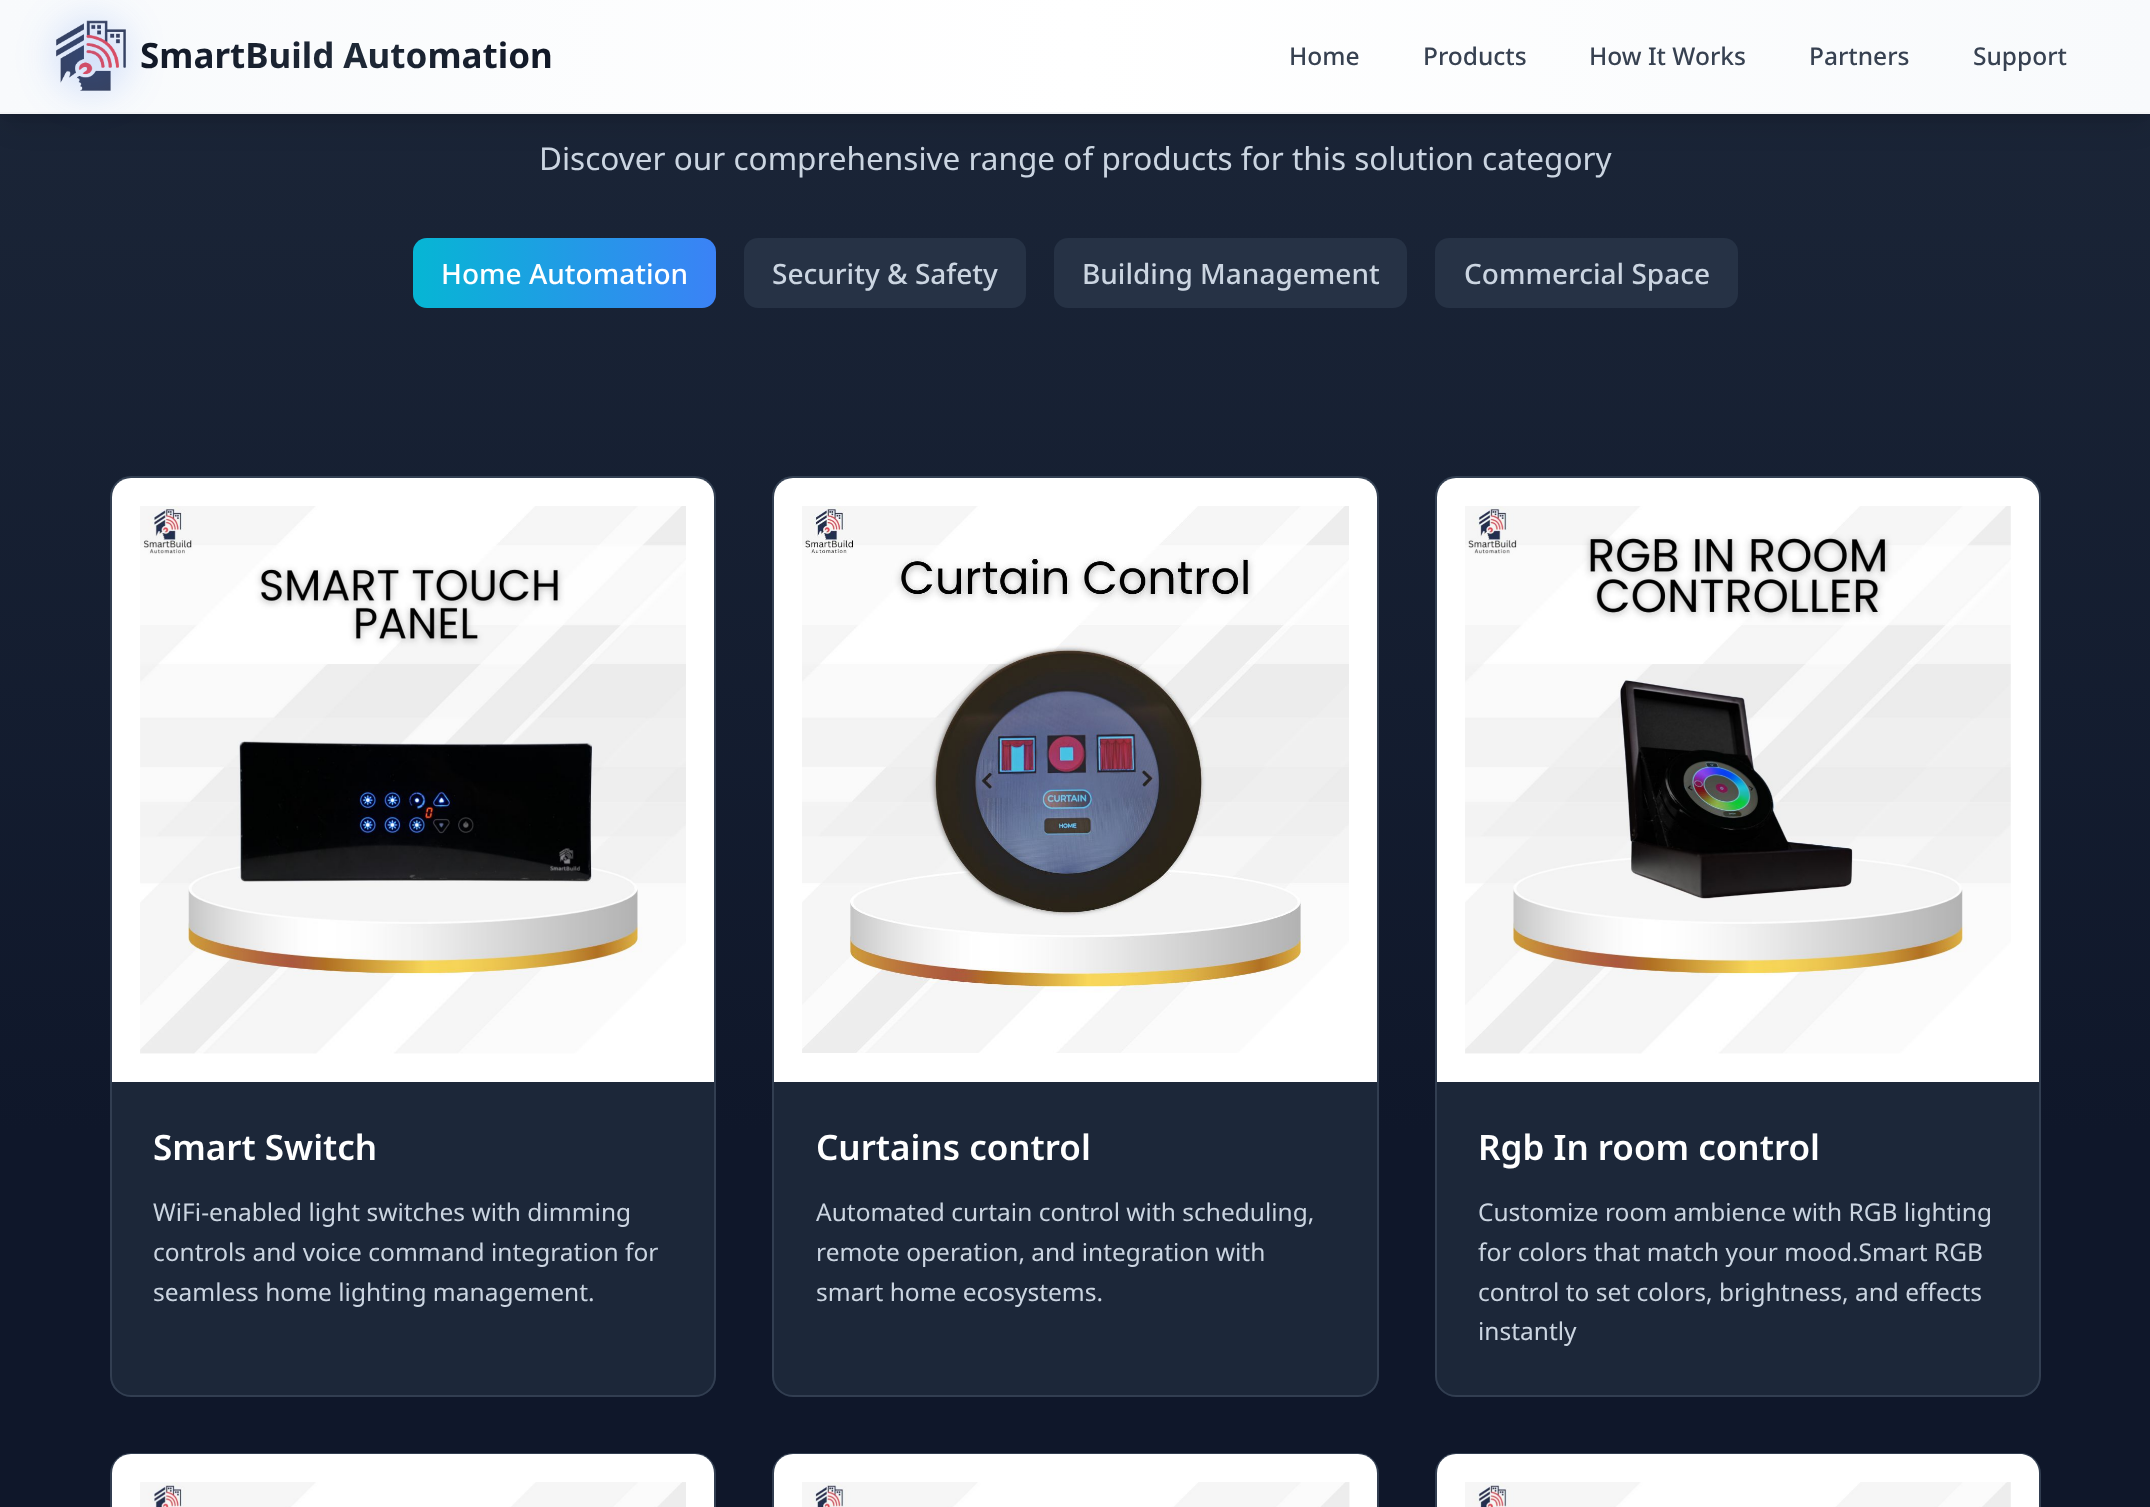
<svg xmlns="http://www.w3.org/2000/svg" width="2150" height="1507">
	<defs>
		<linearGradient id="g1" gradientUnits="userSpaceOnUse" x1="140" y1="56" x2="553" y2="56"><stop offset="0" stop-color="#111827" /><stop offset="0.5" stop-color="#1F2937" /><stop offset="1" stop-color="#111827" /></linearGradient>
		<linearGradient id="g2" gradientUnits="userSpaceOnUse" x1="1075" y1="-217" x2="1075" y2="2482"><stop offset="0" stop-color="#1E293B" /><stop offset="0.5" stop-color="#0F172A" /><stop offset="1" stop-color="#0F172A" /></linearGradient>
		<linearGradient id="g3" gradientUnits="userSpaceOnUse" x1="0" y1="56" x2="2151" y2="56"><stop offset="0" stop-color="#F8FAFC" /><stop offset="0.5" stop-color="#FFFFFF" /><stop offset="1" stop-color="#F8FAFC" /></linearGradient>
		<linearGradient id="g4" gradientUnits="userSpaceOnUse" x1="413" y1="273" x2="716" y2="273"><stop offset="0" stop-color="#06B6D4" /><stop offset="1" stop-color="#3B82F6" /></linearGradient>
	</defs>
	<rect width="100%" height="100%" fill="#FFFFFF" />
	<rect x="0" y="114" width="2150" height="1393" fill="url(#g2)" />
	<rect x="7" y="14" width="2137" height="100" fill="#000000" fill-opacity="0.1" filter="blur(5px)" />
	<rect x="5" y="23" width="2141" height="103" fill="#000000" fill-opacity="0.1" filter="blur(13px)" />
	<rect x="0" y="0" width="2150" height="112" fill="url(#g3)" />
	<rect x="0" y="112" width="2150" height="2" fill="#F3F4F6" />
	<image x="56" y="20" width="70" height="71" href="assets/img1.png" />
	<rect x="56" y="21" width="70" height="70" rx="35" fill="#2563EB" fill-opacity="0.2" filter="blur(21px)" />
	<text x="140" y="68" font-family="Noto Sans" font-size="35" font-weight="700" fill="url(#g1)">SmartBuild Automation</text>
	<g font-family="Noto Sans" font-size="24.5" font-weight="500" fill="#374151">
		<text x="1289" y="65">Home</text>
		<text x="1423" y="65">Products</text>
		<text x="1589" y="65">How It Works</text>
		<text x="1809" y="65">Partners</text>
		<text x="1973" y="65">Support</text>
	</g>
	<text x="539" y="170" font-family="Noto Sans" font-size="31.5" fill="#CBD5E1">Discover our comprehensive range of products for this solution category</text>
	<rect x="413" y="238" width="303" height="70" rx="14" fill="url(#g4)" />
	<text x="441" y="284" font-family="Noto Sans" font-size="28" font-weight="500" fill="#FFFFFF">Home Automation</text>
	<rect x="744" y="238" width="282" height="70" rx="14" fill="#263245" />
	<text x="772" y="284" font-family="Noto Sans" font-size="28" font-weight="500" fill="#CBD5E1">Security &amp; Safety</text>
	<rect x="1054" y="238" width="353" height="70" rx="14" fill="#263245" />
	<text x="1082" y="284" font-family="Noto Sans" font-size="28" font-weight="500" fill="#CBD5E1">Building Management</text>
	<rect x="1435" y="238" width="303" height="70" rx="14" fill="#263245" />
	<text x="1464" y="284" font-family="Noto Sans" font-size="28" font-weight="500" fill="#CBD5E1">Commercial Space</text>
	<rect x="110" y="476" width="606" height="921" rx="21" fill="#1E293B" fill-opacity="0.9" />
	<rect x="111" y="477" width="604" height="919" rx="20" fill="none" stroke="#475569" stroke-opacity="0.5" stroke-width="2" />
	<path d="M131 478H695C705.5 478 714 486.5 714 497V1082H112V497C112 486.5 120.5 478 131 478Z" fill="#FFFFFF" />
	<image x="140" y="506" width="546" height="548" href="assets/img2.png" />
	<text x="153" y="1160" font-family="Noto Sans" font-size="35" font-weight="600" fill="#FFFFFF">Smart Switch</text>
	<g font-family="Noto Sans" font-size="24.5" fill="#CBD5E1">
		<text x="153" y="1221">WiFi-enabled light switches with dimming</text>
		<text x="153" y="1261">controls and voice command integration for</text>
		<text x="153" y="1301">seamless home lighting management.</text>
	</g>
	<rect x="772" y="476" width="607" height="921" rx="21" fill="#1E293B" fill-opacity="0.9" />
	<rect x="773" y="477" width="605" height="919" rx="20" fill="none" stroke="#475569" stroke-opacity="0.5" stroke-width="2" />
	<path d="M793 478H1358C1368.5 478 1377 486.5 1377 497V1082H774V497C774 486.5 782.5 478 793 478Z" fill="#FFFFFF" />
	<image x="802" y="506" width="547" height="547" href="assets/img3.png" />
	<text x="816" y="1160" font-family="Noto Sans" font-size="35" font-weight="600" fill="#FFFFFF">Curtains control</text>
	<g font-family="Noto Sans" font-size="24.5" fill="#CBD5E1">
		<text x="816" y="1221">Automated curtain control with scheduling,</text>
		<text x="816" y="1261">remote operation, and integration with</text>
		<text x="816" y="1301">smart home ecosystems.</text>
	</g>
	<rect x="1435" y="476" width="606" height="921" rx="21" fill="#1E293B" fill-opacity="0.9" />
	<rect x="1436" y="477" width="604" height="919" rx="20" fill="none" stroke="#475569" stroke-opacity="0.5" stroke-width="2" />
	<path d="M1456 478H2020C2030.5 478 2039 486.5 2039 497V1082H1437V497C1437 486.5 1445.5 478 1456 478Z" fill="#FFFFFF" />
	<image x="1465" y="506" width="546" height="548" href="assets/img4.png" />
	<text x="1478" y="1160" font-family="Noto Sans" font-size="35" font-weight="600" fill="#FFFFFF">Rgb In room control</text>
	<g font-family="Noto Sans" font-size="24.5" fill="#CBD5E1">
		<text x="1478" y="1221">Customize room ambience with RGB lighting</text>
		<text x="1478" y="1261">for colors that match your mood.Smart RGB</text>
		<text x="1478" y="1301">control to set colors, brightness, and effects</text>
		<text x="1478" y="1340">instantly</text>
	</g>
	<rect x="110" y="1453" width="606" height="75" rx="21" fill="#1C2739" />
	<rect x="111" y="1454" width="604" height="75" rx="20" fill="none" stroke="#475569" stroke-opacity="0.5" stroke-width="2" />
	<path d="M131 1454H695C705.5 1454 714 1462.5 714 1473V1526H112V1473C112 1462.5 120.5 1454 131 1454Z" fill="#FFFFFF" />
	<image x="140" y="1482" width="546" height="25" href="assets/img5.png" />
	<rect x="772" y="1453" width="607" height="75" rx="21" fill="#1C2739" />
	<rect x="773" y="1454" width="605" height="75" rx="20" fill="none" stroke="#475569" stroke-opacity="0.5" stroke-width="2" />
	<path d="M793 1454H1358C1368.5 1454 1377 1462.5 1377 1473V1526H774V1473C774 1462.5 782.5 1454 793 1454Z" fill="#FFFFFF" />
	<image x="802" y="1482" width="548" height="25" href="assets/img6.png" />
	<rect x="1435" y="1453" width="606" height="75" rx="21" fill="#1C2739" />
	<rect x="1436" y="1454" width="604" height="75" rx="20" fill="none" stroke="#475569" stroke-opacity="0.5" stroke-width="2" />
	<path d="M1456 1454H2020C2030.5 1454 2039 1462.5 2039 1473V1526H1437V1473C1437 1462.5 1445.5 1454 1456 1454Z" fill="#FFFFFF" />
	<image x="1465" y="1482" width="546" height="25" href="assets/img7.png" />
</svg>
